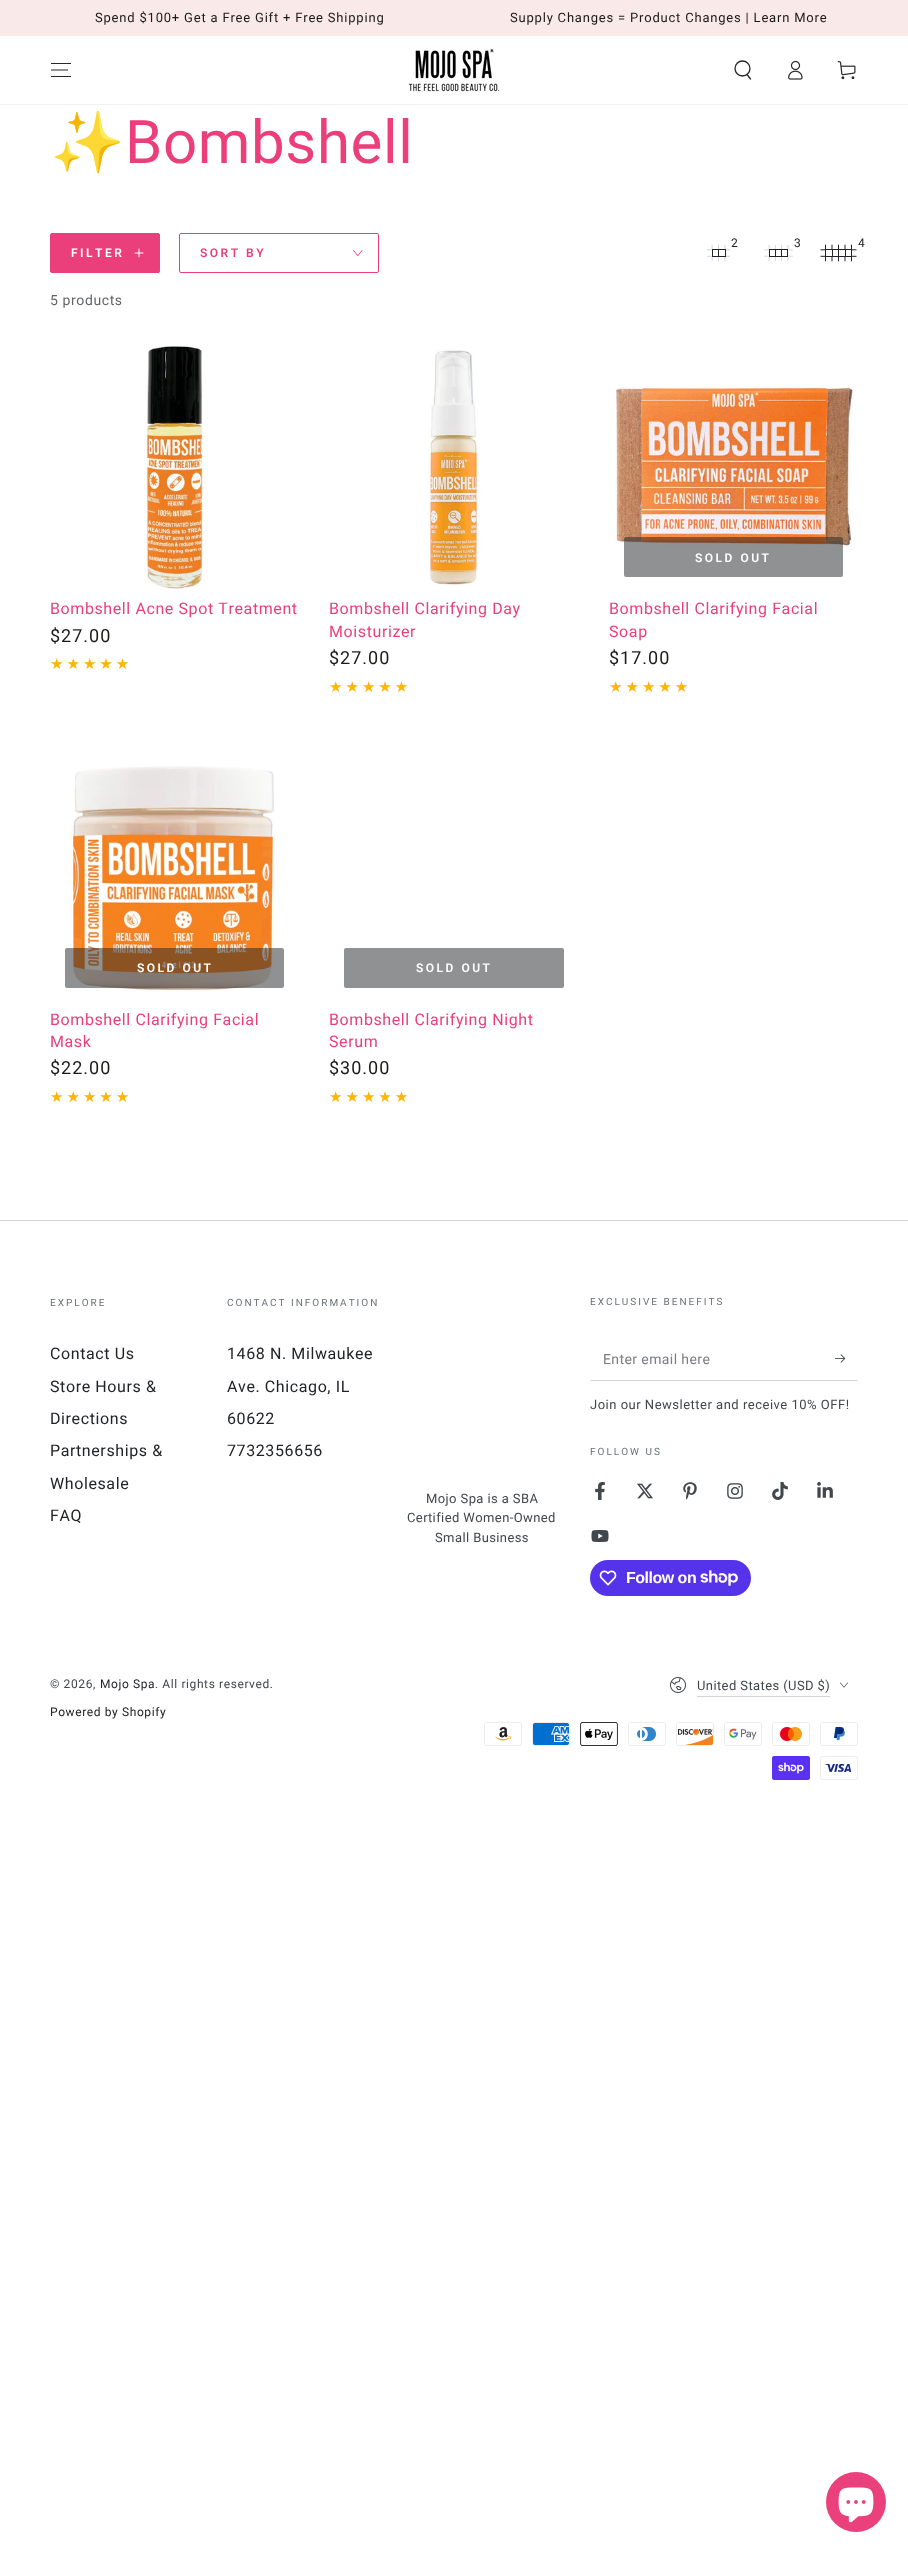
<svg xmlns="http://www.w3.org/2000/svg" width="908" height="2553">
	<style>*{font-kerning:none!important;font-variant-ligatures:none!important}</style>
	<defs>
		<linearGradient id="g1" gradientUnits="userSpaceOnUse" x1="50" y1="664" x2="132" y2="664"><stop offset="1" stop-color="#FFB503" /><stop offset="1" stop-color="#DEDEDE" /></linearGradient>
		<linearGradient id="g2" gradientUnits="userSpaceOnUse" x1="329" y1="687" x2="412" y2="687"><stop offset="0.97" stop-color="#FFB503" /><stop offset="0.97" stop-color="#DEDEDE" /></linearGradient>
		<linearGradient id="g3" gradientUnits="userSpaceOnUse" x1="609" y1="687" x2="691" y2="687"><stop offset="1" stop-color="#FFB503" /><stop offset="1" stop-color="#DEDEDE" /></linearGradient>
		<linearGradient id="g4" gradientUnits="userSpaceOnUse" x1="50" y1="1097" x2="132" y2="1097"><stop offset="0.97" stop-color="#FFB503" /><stop offset="0.97" stop-color="#DEDEDE" /></linearGradient>
		<linearGradient id="g5" gradientUnits="userSpaceOnUse" x1="329" y1="1097" x2="412" y2="1097"><stop offset="1" stop-color="#FFB503" /><stop offset="1" stop-color="#DEDEDE" /></linearGradient>
	</defs>
	<rect width="100%" height="100%" fill="#FFFFFF" />
	<rect x="0" y="0" width="908" height="36" fill="#FAE9E9" />
	<g font-family="Roboto" font-size="13" letter-spacing="0.8" fill="#1A1B18">
		<text x="95" y="22">Spend $100+ Get a Free Gift + Free Shipping</text>
		<text x="510" y="22">Supply Changes = Product Changes | Learn More</text>
	</g>
	<rect x="0" y="104" width="908" height="1" fill="#F2F2F4" />
	<path d="M51 76.5H71M51 70H68M51 63.5H71" fill="none" stroke="#282828" stroke-width="1.1" />
	<image x="408" y="48" width="92" height="44" href="assets/img1.png" />
	<circle cx="742.5" cy="68.5" r="7.5" fill="none" stroke="#282828" stroke-width="1.3" />
	<path d="M747 74.5L750.5 79" fill="none" stroke="#282828" stroke-width="1.3" stroke-linecap="round" />
	<image x="788" y="60" width="15" height="20" href="assets/img2.png" />
	<image x="837" y="61" width="19" height="19" href="assets/img3.png" />
	<text x="50" y="163" font-family="Noto Color Emoji" font-size="60" letter-spacing="0.6" fill="#EA3F7A">✨</text>
	<text x="125" y="163" font-family="Roboto" font-size="60" letter-spacing="0.6" fill="#EA3F7A">Bombshell</text>
	<text x="731" y="247" font-family="Roboto" font-size="12" fill="#212326">2</text>
	<image x="707" y="244" width="23" height="18" href="assets/img4.png" />
	<text x="794" y="247" font-family="Roboto" font-size="12" fill="#212326">3</text>
	<image x="764" y="245" width="29" height="16" href="assets/img5.png" />
	<text x="858" y="247" font-family="Roboto" font-size="12" fill="#212326">4</text>
	<image x="820" y="244" width="37" height="18" href="assets/img6.png" />
	<rect x="50.5" y="233.5" width="109" height="39" rx="1.5" fill="#EA3F7A" stroke="#EA3F7A" />
	<text x="71" y="257" font-family="Roboto" font-size="12" font-weight="600" letter-spacing="2.5" fill="#FFFFFF">FILTER</text>
	<image x="134" y="248" width="10" height="10" href="assets/img7.png" />
	<rect x="179.5" y="233.5" width="199" height="39" rx="1.5" fill="none" stroke="#EA3F7A" />
	<text x="200" y="257" font-family="Roboto" font-size="12" font-weight="600" letter-spacing="2.5" fill="#EA3F7A">SORT BY</text>
	<image x="353" y="250" width="10" height="6" href="assets/img8.png" />
	<text x="50" y="305" font-family="Roboto" font-size="14" letter-spacing="0.6" fill="#646567">5 products</text>
	<image x="144" y="345" width="61" height="244" href="assets/img9.png" />
	<text x="50" y="614" font-family="Roboto" font-size="16" letter-spacing="0.6" fill="#EA3F7A">Bombshell Acne Spot Treatment</text>
	<text x="50" y="642" font-family="Roboto" font-size="18" letter-spacing="1" fill="#1A1B18">$27.00</text>
	<text x="50" y="669" font-family="DejaVu Sans" font-size="15" letter-spacing="3" fill="url(#g1)">★★★★★</text>
	<image x="428" y="348" width="54" height="238" href="assets/img10.png" />
	<g font-family="Roboto" font-size="16" letter-spacing="0.6" fill="#EA3F7A">
		<text x="329" y="614">Bombshell Clarifying Day</text>
		<text x="329" y="637">Moisturizer</text>
	</g>
	<text x="329" y="664" font-family="Roboto" font-size="18" letter-spacing="1" fill="#1A1B18">$27.00</text>
	<text x="329" y="692" font-family="DejaVu Sans" font-size="15" letter-spacing="3" fill="url(#g2)">★★★★★</text>
	<image x="615" y="387" width="238" height="160" href="assets/img11.png" />
	<rect x="624" y="537" width="219" height="40" rx="2" fill="#212326" fill-opacity="0.5" />
	<text x="695" y="562" font-family="Roboto" font-size="12" font-weight="600" letter-spacing="2.5" fill="#FFFFFF">SOLD OUT</text>
	<g font-family="Roboto" font-size="16" letter-spacing="0.6" fill="#EA3F7A">
		<text x="609" y="614">Bombshell Clarifying Facial</text>
		<text x="609" y="637">Soap</text>
	</g>
	<text x="609" y="664" font-family="Roboto" font-size="18" letter-spacing="1" fill="#1A1B18">$17.00</text>
	<text x="609" y="692" font-family="DejaVu Sans" font-size="15" letter-spacing="3" fill="url(#g3)">★★★★★</text>
	<image x="71" y="766" width="206" height="225" href="assets/img12.png" />
	<rect x="65" y="948" width="219" height="40" rx="2" fill="#212326" fill-opacity="0.5" />
	<text x="137" y="972" font-family="Roboto" font-size="12" font-weight="600" letter-spacing="2.5" fill="#FFFFFF">SOLD OUT</text>
	<g font-family="Roboto" font-size="16" letter-spacing="0.6" fill="#EA3F7A">
		<text x="50" y="1025">Bombshell Clarifying Facial</text>
		<text x="50" y="1047">Mask</text>
	</g>
	<text x="50" y="1074" font-family="Roboto" font-size="18" letter-spacing="1" fill="#1A1B18">$22.00</text>
	<text x="50" y="1102" font-family="DejaVu Sans" font-size="15" letter-spacing="3" fill="url(#g4)">★★★★★</text>
	<rect x="344" y="948" width="220" height="40" rx="2" fill="#909193" />
	<text x="416" y="972" font-family="Roboto" font-size="12" font-weight="600" letter-spacing="2.5" fill="#FFFFFF">SOLD OUT</text>
	<g font-family="Roboto" font-size="16" letter-spacing="0.6" fill="#EA3F7A">
		<text x="329" y="1025">Bombshell Clarifying Night</text>
		<text x="329" y="1047">Serum</text>
	</g>
	<text x="329" y="1074" font-family="Roboto" font-size="18" letter-spacing="1" fill="#1A1B18">$30.00</text>
	<text x="329" y="1102" font-family="DejaVu Sans" font-size="15" letter-spacing="3" fill="url(#g5)">★★★★★</text>
	<rect x="0" y="1220" width="908" height="1" fill="#D2D5D9" />
	<text x="50" y="1306" font-family="Roboto" font-size="10" letter-spacing="2" fill="#6B7177">EXPLORE</text>
	<g font-family="Roboto" font-size="16" letter-spacing="0.6" fill="#212326">
		<text x="50" y="1359">Contact Us</text>
		<text x="50" y="1392">Store Hours &amp;</text>
		<text x="50" y="1424">Directions</text>
		<text x="50" y="1456">Partnerships &amp;</text>
		<text x="50" y="1489">Wholesale</text>
		<text x="50" y="1521">FAQ</text>
	</g>
	<text x="227" y="1306" font-family="Roboto" font-size="10" letter-spacing="2" fill="#6B7177">CONTACT INFORMATION</text>
	<g font-family="Roboto" font-size="16" letter-spacing="0.6" fill="#212326">
		<text x="227" y="1359">1468 N. Milwaukee</text>
		<text x="227" y="1392">Ave. Chicago, IL</text>
		<text x="227" y="1424">60622</text>
		<text x="227" y="1456">7732356656</text>
	</g>
	<g font-family="Roboto" font-size="13" letter-spacing="0.4" fill="#42474C">
		<text x="426" y="1503">Mojo Spa is a SBA</text>
		<text x="407" y="1522">Certified Women-Owned</text>
		<text x="435" y="1542">Small Business</text>
	</g>
	<text x="590" y="1305" font-family="Roboto" font-size="10" letter-spacing="2" fill="#6B7177">EXCLUSIVE BENEFITS</text>
	<path d="M858 1381H590L591 1380H857Z" fill="#D2D5D9" />
	<text x="603" y="1364" font-family="Roboto" font-size="14" letter-spacing="0.4" fill="#7B7E82">Enter email here</text>
	<image x="835" y="1354" width="11" height="9" href="assets/img13.png" />
	<text x="590" y="1409" font-family="Roboto" font-size="13" letter-spacing="0.5" fill="#42474C">Join our Newsletter and receive 10% OFF!</text>
	<text x="590" y="1455" font-family="Roboto" font-size="10" letter-spacing="2" fill="#6B7177">FOLLOW US</text>
	<image x="595" y="1482" width="10" height="18" href="assets/img14.png" />
	<image x="637" y="1483" width="16" height="16" href="assets/img15.png" />
	<image x="683" y="1482" width="14" height="18" href="assets/img16.png" />
	<image x="727" y="1483" width="16" height="16" href="assets/img17.png" />
	<image x="772" y="1482" width="16" height="18" href="assets/img18.png" />
	<image x="817" y="1482" width="16" height="16" href="assets/img19.png" />
	<image x="591" y="1530" width="18" height="12" href="assets/img20.png" />
	<rect x="590" y="1560" width="161" height="36" rx="18" fill="#5433EB" />
	<image x="599" y="1570" width="18" height="16" href="assets/img21.png" />
	<text x="626" y="1583" font-family="Liberation Sans" font-size="16" font-weight="700" letter-spacing="-0.5" fill="#FFFFFF">Follow on</text>
	<image x="700" y="1570" width="38" height="16" href="assets/img22.png" />
	<text x="50" y="1688" font-family="Roboto" font-size="12" letter-spacing="0.6" fill="#42474C">© 2026,</text>
	<text x="100" y="1688" font-family="Roboto" font-size="12" letter-spacing="0.6" fill="#212326">Mojo Spa</text>
	<text x="155" y="1688" font-family="Roboto" font-size="12" letter-spacing="0.6" fill="#42474C">. All rights reserved.</text>
	<text x="50" y="1716" font-family="Roboto" font-size="12" letter-spacing="0.6" fill="#212326">Powered by Shopify</text>
	<image x="670" y="1677" width="16" height="16" href="assets/img23.png" />
	<rect x="697" y="1696" width="133" height="1" fill="#D2D5D9" />
	<text x="697" y="1690" font-family="Roboto" font-size="13" letter-spacing="0.4" fill="#42474C">United States (USD $)</text>
	<image x="840" y="1682" width="8" height="6" href="assets/img24.png" />
	<image x="484" y="1722" width="38" height="24" href="assets/img25.png" />
	<image x="532" y="1722" width="38" height="24" href="assets/img26.png" />
	<image x="580" y="1722" width="38" height="24" href="assets/img27.png" />
	<image x="628" y="1722" width="38" height="24" href="assets/img28.png" />
	<image x="676" y="1722" width="38" height="24" href="assets/img29.png" />
	<image x="724" y="1722" width="38" height="24" href="assets/img30.png" />
	<image x="772" y="1722" width="38" height="24" href="assets/img31.png" />
	<image x="820" y="1722" width="38" height="24" href="assets/img32.png" />
	<image x="772" y="1756" width="38" height="24" href="assets/img33.png" />
	<image x="820" y="1756" width="38" height="24" href="assets/img34.png" />
	<circle cx="856" cy="2502" r="30" fill="#EA407B" />
	<image x="838" y="2487" width="36" height="36" href="assets/img35.png" />
</svg>
